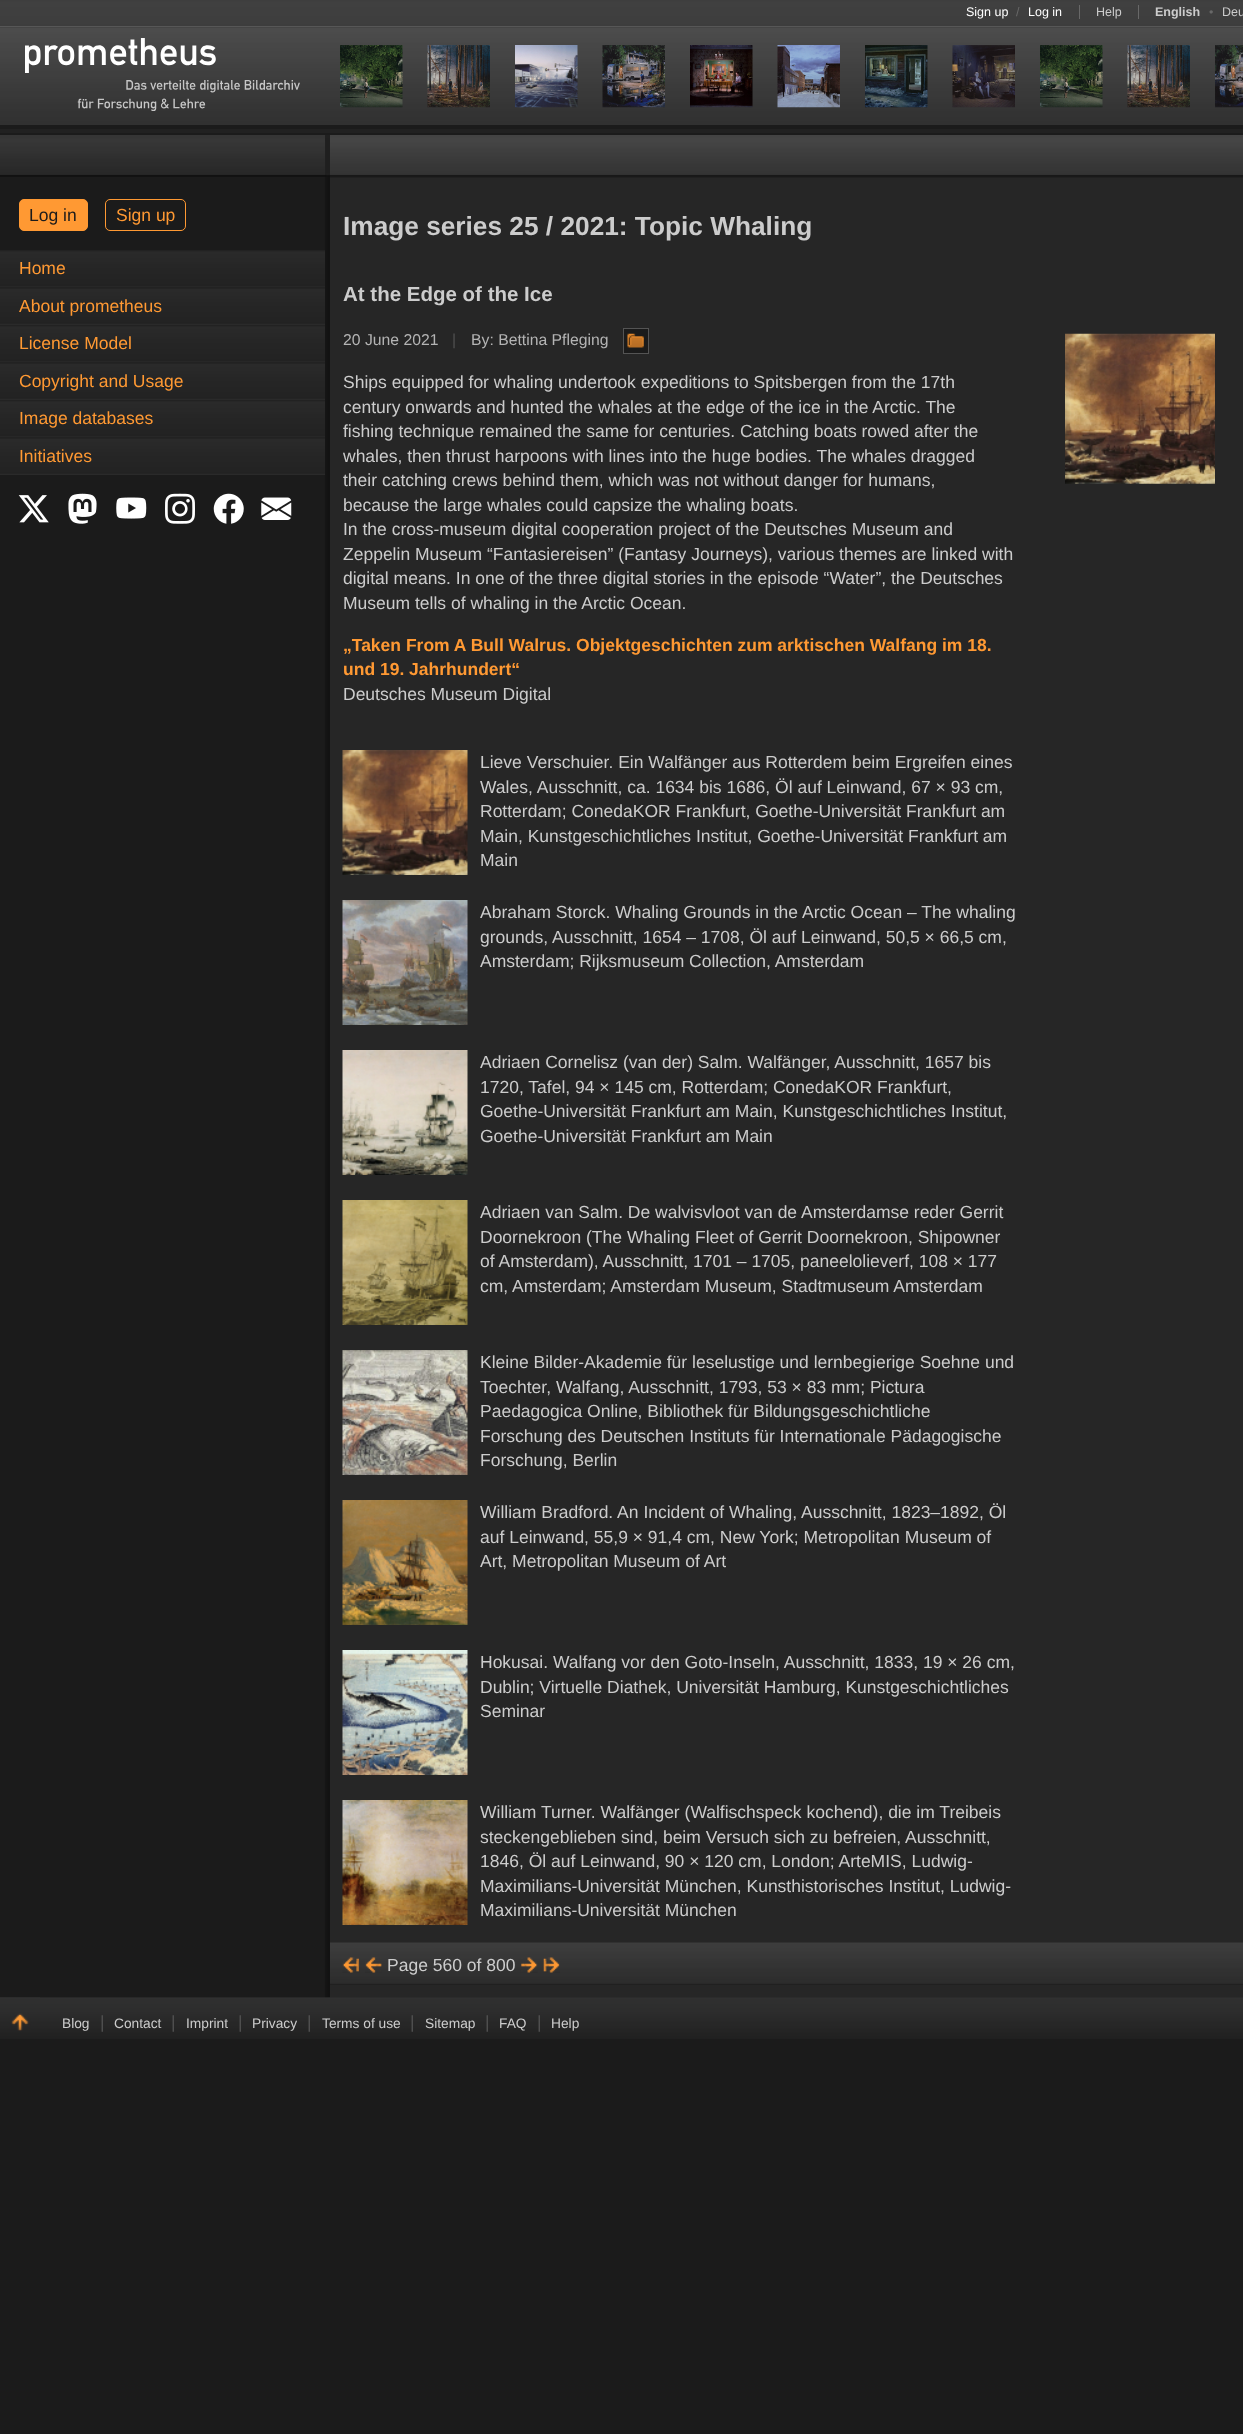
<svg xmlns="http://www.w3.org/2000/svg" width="1243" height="2434">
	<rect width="100%" height="100%" fill="#1B1B1B" />
	<image x="0" y="0" width="1243" height="28" href="assets/img1.png" />
	<text x="966" y="16" font-family="Liberation Sans" font-size="12.5" fill="#FFFFFF">Sign up</text>
	<text x="1016" y="16" font-family="Liberation Sans" font-size="12.5" fill="#686868">/</text>
	<text x="1028" y="16" font-family="Liberation Sans" font-size="12.5" fill="#FFFFFF">Log in</text>
	<text x="1096" y="16" font-family="Liberation Sans" font-size="12.5" fill="#CCCCCC">Help</text>
	<rect x="1079" y="5" width="1" height="14" fill="#686868" />
	<text x="1155" y="16" font-family="Liberation Sans" font-size="12.5" font-weight="700" fill="#CCCCCC">English</text>
	<rect x="1138" y="5" width="1" height="14" fill="#686868" />
	<text x="1209" y="16" font-family="Liberation Sans" font-size="12.5" fill="#686868">•</text>
	<text x="1222" y="16" font-family="Liberation Sans" font-size="12.5" fill="#CCCCCC">Deu</text>
	<image x="0" y="27" width="1243" height="98" href="assets/img2.png" />
	<image x="25" y="38" width="275" height="73" href="assets/img3.png" />
	<image x="340" y="45" width="63" height="63" href="assets/img4.png" />
	<image x="427" y="45" width="63" height="63" href="assets/img5.png" />
	<image x="515" y="45" width="63" height="63" href="assets/img6.png" />
	<image x="602" y="45" width="63" height="63" href="assets/img7.png" />
	<image x="690" y="45" width="63" height="63" href="assets/img8.png" />
	<image x="777" y="45" width="63" height="63" href="assets/img9.png" />
	<image x="865" y="45" width="63" height="63" href="assets/img10.png" />
	<image x="952" y="45" width="63" height="63" href="assets/img11.png" />
	<image x="1040" y="45" width="63" height="63" href="assets/img12.png" />
	<image x="1127" y="45" width="63" height="63" href="assets/img13.png" />
	<image x="1215" y="45" width="28" height="63" href="assets/img14.png" />
	<rect x="0" y="129" width="1243" height="4" fill="#212121" />
	<rect x="0" y="177" width="1243" height="1821" fill="#262626" />
	<image x="0" y="177" width="330" height="1821" href="assets/img15.png" />
	<image x="0" y="135" width="325" height="42" href="assets/img16.png" />
	<image x="325" y="135" width="5" height="42" href="assets/img17.png" />
	<rect x="19.5" y="199.5" width="68" height="31" rx="4.5" fill="#FF9933" stroke="#FF9933" />
	<text x="29" y="221" font-family="Liberation Sans" font-size="17.5" fill="#1B1B1B">Log in</text>
	<rect x="105.5" y="199.5" width="80" height="31" rx="4.5" fill="none" stroke="#FF9933" />
	<text x="116" y="221" font-family="Liberation Sans" font-size="17.5" fill="#FF9933">Sign up</text>
	<image x="0" y="250" width="325" height="38" href="assets/img18.png" />
	<text x="19" y="274" font-family="Liberation Sans" font-size="17.5" fill="#FF9933">Home</text>
	<image x="0" y="288" width="325" height="37" href="assets/img19.png" />
	<text x="19" y="312" font-family="Liberation Sans" font-size="17.5" fill="#FF9933">About prometheus</text>
	<image x="0" y="325" width="325" height="38" href="assets/img18.png" />
	<text x="19" y="349" font-family="Liberation Sans" font-size="17.5" fill="#FF9933">License Model</text>
	<image x="0" y="363" width="325" height="37" href="assets/img19.png" />
	<text x="19" y="387" font-family="Liberation Sans" font-size="17.5" fill="#FF9933">Copyright and Usage</text>
	<image x="0" y="400" width="325" height="38" href="assets/img18.png" />
	<text x="19" y="424" font-family="Liberation Sans" font-size="17.5" fill="#FF9933">Image databases</text>
	<image x="0" y="438" width="325" height="37" href="assets/img19.png" />
	<text x="19" y="462" font-family="Liberation Sans" font-size="17.5" fill="#FF9933">Initiatives</text>
	<image x="18" y="495" width="31" height="28" href="assets/img20.png" />
	<image x="68" y="493" width="29" height="31" href="assets/img21.png" />
	<image x="116" y="497" width="31" height="22" href="assets/img22.png" />
	<image x="165" y="493" width="30" height="31" href="assets/img23.png" />
	<image x="213" y="493" width="31" height="31" href="assets/img24.png" />
	<image x="261" y="497" width="31" height="23" href="assets/img25.png" />
	<image x="330" y="135" width="913" height="43" href="assets/img26.png" />
	<text x="343" y="235" font-family="Liberation Sans" font-size="26.25" font-weight="700" fill="#CCCCCC">Image series 25 / 2021: Topic Whaling</text>
	<text x="343" y="301" font-family="Liberation Sans" font-size="20.5" font-weight="700" fill="#CCCCCC">At the Edge of the Ice</text>
	<text x="343" y="345" font-family="Liberation Sans" font-size="15.75" fill="#B4B4B4">20 June 2021</text>
	<text x="452" y="345" font-family="Liberation Sans" font-size="15.75" fill="#505050">|</text>
	<text x="471" y="345" font-family="Liberation Sans" font-size="15.75" fill="#B4B4B4">By: Bettina Pfleging</text>
	<rect x="623.5" y="328.5" width="25" height="25" fill="#1B1B1B" stroke="#545454" />
	<image x="627" y="333" width="17" height="15" href="assets/img27.png" />
	<image x="1065" y="333" width="150" height="151" href="assets/img28.png" />
	<g font-family="Liberation Sans" font-size="17.5" fill="#CCCCCC">
		<text x="343" y="388">Ships equipped for whaling undertook expeditions to Spitsbergen from the 17th</text>
		<text x="343" y="413">century onwards and hunted the whales at the edge of the ice in the Arctic. The</text>
		<text x="343" y="437">fishing technique remained the same for centuries. Catching boats rowed after the</text>
		<text x="343" y="462">whales, then thrust harpoons with lines into the huge bodies. The whales dragged</text>
		<text x="343" y="486">their catching crews behind them, which was not without danger for humans,</text>
		<text x="343" y="511">because the large whales could capsize the whaling boats.</text>
		<text x="343" y="535">In the cross-museum digital cooperation project of the Deutsches Museum and</text>
		<text x="343" y="560">Zeppelin Museum “Fantasiereisen” (Fantasy Journeys), various themes are linked with</text>
		<text x="343" y="584">digital means. In one of the three digital stories in the episode “Water”, the Deutsches</text>
		<text x="343" y="609">Museum tells of whaling in the Arctic Ocean.</text>
	</g>
	<g font-family="Liberation Sans" font-size="17.5" font-weight="700" fill="#FF9933">
		<text x="343" y="651">„Taken From A Bull Walrus. Objektgeschichten zum arktischen Walfang im 18.</text>
		<text x="343" y="675">und 19. Jahrhundert“</text>
	</g>
	<text x="343" y="700" font-family="Liberation Sans" font-size="17.5" fill="#CCCCCC">Deutsches Museum Digital</text>
	<image x="342" y="750" width="126" height="125" href="assets/img29.png" />
	<g font-family="Liberation Sans" font-size="17.5" fill="#CCCCCC">
		<text x="480" y="768">Lieve Verschuier. Ein Walfänger aus Rotterdem beim Ergreifen eines</text>
		<text x="480" y="793">Wales, Ausschnitt, ca. 1634 bis 1686, Öl auf Leinwand, 67 × 93 cm,</text>
		<text x="480" y="817">Rotterdam; ConedaKOR Frankfurt, Goethe-Universität Frankfurt am</text>
		<text x="480" y="842">Main, Kunstgeschichtliches Institut, Goethe-Universität Frankfurt am</text>
		<text x="480" y="866">Main</text>
	</g>
	<image x="342" y="900" width="126" height="125" href="assets/img30.png" />
	<g font-family="Liberation Sans" font-size="17.5" fill="#CCCCCC">
		<text x="480" y="918">Abraham Storck. Whaling Grounds in the Arctic Ocean – The whaling</text>
		<text x="480" y="943">grounds, Ausschnitt, 1654 – 1708, Öl auf Leinwand, 50,5 × 66,5 cm,</text>
		<text x="480" y="967">Amsterdam; Rijksmuseum Collection, Amsterdam</text>
	</g>
	<image x="342" y="1050" width="126" height="125" href="assets/img31.png" />
	<g font-family="Liberation Sans" font-size="17.5" fill="#CCCCCC">
		<text x="480" y="1068">Adriaen Cornelisz (van der) Salm. Walfänger, Ausschnitt, 1657 bis</text>
		<text x="480" y="1093">1720, Tafel, 94 × 145 cm, Rotterdam; ConedaKOR Frankfurt,</text>
		<text x="480" y="1117">Goethe-Universität Frankfurt am Main, Kunstgeschichtliches Institut,</text>
		<text x="480" y="1142">Goethe-Universität Frankfurt am Main</text>
	</g>
	<image x="342" y="1200" width="126" height="125" href="assets/img32.png" />
	<g font-family="Liberation Sans" font-size="17.5" fill="#CCCCCC">
		<text x="480" y="1218">Adriaen van Salm. De walvisvloot van de Amsterdamse reder Gerrit</text>
		<text x="480" y="1243">Doornekroon (The Whaling Fleet of Gerrit Doornekroon, Shipowner</text>
		<text x="480" y="1267">of Amsterdam), Ausschnitt, 1701 – 1705, paneelolieverf, 108 × 177</text>
		<text x="480" y="1292">cm, Amsterdam; Amsterdam Museum, Stadtmuseum Amsterdam</text>
	</g>
	<image x="342" y="1350" width="126" height="125" href="assets/img33.png" />
	<g font-family="Liberation Sans" font-size="17.5" fill="#CCCCCC">
		<text x="480" y="1368">Kleine Bilder-Akademie für leselustige und lernbegierige Soehne und</text>
		<text x="480" y="1393">Toechter, Walfang, Ausschnitt, 1793, 53 × 83 mm; Pictura</text>
		<text x="480" y="1417">Paedagogica Online, Bibliothek für Bildungsgeschichtliche</text>
		<text x="480" y="1442">Forschung des Deutschen Instituts für Internationale Pädagogische</text>
		<text x="480" y="1466">Forschung, Berlin</text>
	</g>
	<image x="342" y="1500" width="126" height="125" href="assets/img34.png" />
	<g font-family="Liberation Sans" font-size="17.5" fill="#CCCCCC">
		<text x="480" y="1518">William Bradford. An Incident of Whaling, Ausschnitt, 1823–1892, Öl</text>
		<text x="480" y="1543">auf Leinwand, 55,9 × 91,4 cm, New York; Metropolitan Museum of</text>
		<text x="480" y="1567">Art, Metropolitan Museum of Art</text>
	</g>
	<image x="342" y="1650" width="126" height="125" href="assets/img35.png" />
	<g font-family="Liberation Sans" font-size="17.5" fill="#CCCCCC">
		<text x="480" y="1668">Hokusai. Walfang vor den Goto-Inseln, Ausschnitt, 1833, 19 × 26 cm,</text>
		<text x="480" y="1693">Dublin; Virtuelle Diathek, Universität Hamburg, Kunstgeschichtliches</text>
		<text x="480" y="1717">Seminar</text>
	</g>
	<image x="342" y="1800" width="126" height="125" href="assets/img36.png" />
	<g font-family="Liberation Sans" font-size="17.5" fill="#CCCCCC">
		<text x="480" y="1818">William Turner. Walfänger (Walfischspeck kochend), die im Treibeis</text>
		<text x="480" y="1843">steckengeblieben sind, beim Versuch sich zu befreien, Ausschnitt,</text>
		<text x="480" y="1867">1846, Öl auf Leinwand, 90 × 120 cm, London; ArteMIS, Ludwig-</text>
		<text x="480" y="1892">Maximilians-Universität München, Kunsthistorisches Institut, Ludwig-</text>
		<text x="480" y="1916">Maximilians-Universität München</text>
	</g>
	<image x="330" y="1942" width="913" height="43" href="assets/img37.png" />
	<image x="342" y="1957" width="18" height="16" href="assets/img38.png" />
	<image x="365" y="1957" width="17" height="16" href="assets/img39.png" />
	<text x="387" y="1971" font-family="Liberation Sans" font-size="17.5" fill="#CCCCCC">Page 560 of 800</text>
	<image x="520" y="1957" width="18" height="16" href="assets/img40.png" />
	<image x="543" y="1957" width="17" height="16" href="assets/img41.png" />
	<image x="0" y="1997" width="1243" height="42" href="assets/img42.png" />
	<image x="0" y="1997" width="40" height="34" href="assets/img43.png" />
	<text x="62" y="2028" font-family="Liberation Sans" font-size="13.75" fill="#CCCCCC">Blog</text>
	<text x="100" y="2028" font-family="Liberation Sans" font-size="17.5" fill="#505050">|</text>
	<text x="114" y="2028" font-family="Liberation Sans" font-size="13.75" fill="#CCCCCC">Contact</text>
	<text x="171" y="2028" font-family="Liberation Sans" font-size="17.5" fill="#505050">|</text>
	<text x="186" y="2028" font-family="Liberation Sans" font-size="13.75" fill="#CCCCCC">Imprint</text>
	<text x="238" y="2028" font-family="Liberation Sans" font-size="17.5" fill="#505050">|</text>
	<text x="252" y="2028" font-family="Liberation Sans" font-size="13.75" fill="#CCCCCC">Privacy</text>
	<text x="307" y="2028" font-family="Liberation Sans" font-size="17.5" fill="#505050">|</text>
	<text x="322" y="2028" font-family="Liberation Sans" font-size="13.75" fill="#CCCCCC">Terms of use</text>
	<text x="410" y="2028" font-family="Liberation Sans" font-size="17.5" fill="#505050">|</text>
	<text x="425" y="2028" font-family="Liberation Sans" font-size="13.75" fill="#CCCCCC">Sitemap</text>
	<text x="485" y="2028" font-family="Liberation Sans" font-size="17.5" fill="#505050">|</text>
	<text x="499" y="2028" font-family="Liberation Sans" font-size="13.75" fill="#CCCCCC">FAQ</text>
	<text x="537" y="2028" font-family="Liberation Sans" font-size="17.5" fill="#505050">|</text>
	<text x="551" y="2028" font-family="Liberation Sans" font-size="13.75" fill="#CCCCCC">Help</text>
</svg>
